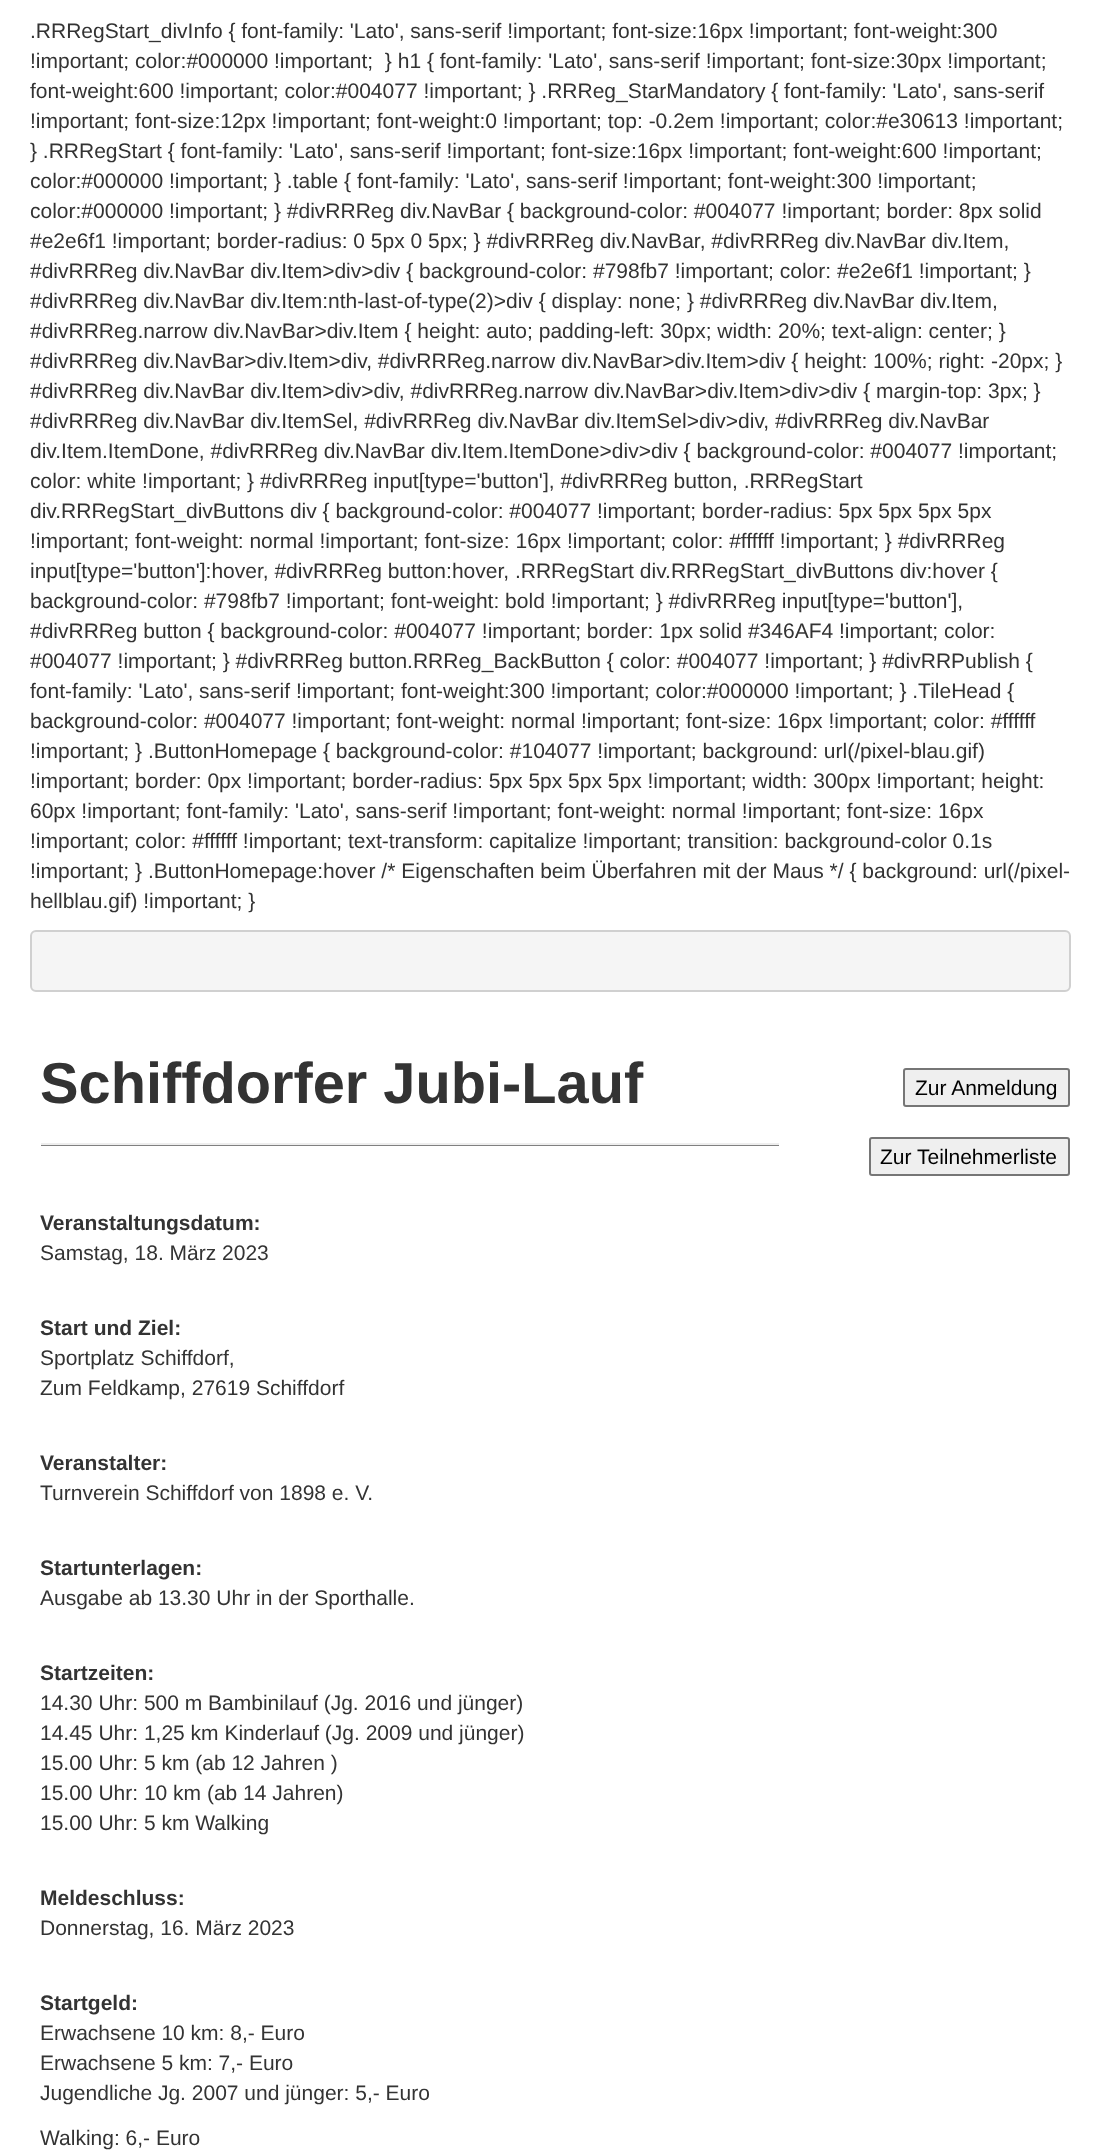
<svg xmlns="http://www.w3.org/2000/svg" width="1101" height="2152">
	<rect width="100%" height="100%" fill="#FFFFFF" />
	<g font-family="Liberation Sans" font-size="21" fill="#333333">
		<text x="30" y="38">.RRRegStart_divInfo { font-family: 'Lato', sans-serif !important; font-size:16px !important; font-weight:300</text>
		<text x="30" y="68" xml:space="preserve">!important; color:#000000 !important;  } h1 { font-family: 'Lato', sans-serif !important; font-size:30px !important;</text>
		<text x="30" y="98">font-weight:600 !important; color:#004077 !important; } .RRReg_StarMandatory { font-family: 'Lato', sans-serif</text>
		<text x="30" y="128">!important; font-size:12px !important; font-weight:0 !important; top: -0.2em !important; color:#e30613 !important;</text>
		<text x="30" y="158">} .RRRegStart { font-family: 'Lato', sans-serif !important; font-size:16px !important; font-weight:600 !important;</text>
		<text x="30" y="188">color:#000000 !important; } .table { font-family: 'Lato', sans-serif !important; font-weight:300 !important;</text>
		<text x="30" y="218">color:#000000 !important; } #divRRReg div.NavBar { background-color: #004077 !important; border: 8px solid</text>
		<text x="30" y="248">#e2e6f1 !important; border-radius: 0 5px 0 5px; } #divRRReg div.NavBar, #divRRReg div.NavBar div.Item,</text>
		<text x="30" y="278">#divRRReg div.NavBar div.Item&gt;div&gt;div { background-color: #798fb7 !important; color: #e2e6f1 !important; }</text>
		<text x="30" y="308">#divRRReg div.NavBar div.Item:nth-last-of-type(2)&gt;div { display: none; } #divRRReg div.NavBar div.Item,</text>
		<text x="30" y="338">#divRRReg.narrow div.NavBar&gt;div.Item { height: auto; padding-left: 30px; width: 20%; text-align: center; }</text>
		<text x="30" y="368">#divRRReg div.NavBar&gt;div.Item&gt;div, #divRRReg.narrow div.NavBar&gt;div.Item&gt;div { height: 100%; right: -20px; }</text>
		<text x="30" y="398">#divRRReg div.NavBar div.Item&gt;div&gt;div, #divRRReg.narrow div.NavBar&gt;div.Item&gt;div&gt;div { margin-top: 3px; }</text>
		<text x="30" y="428">#divRRReg div.NavBar div.ItemSel, #divRRReg div.NavBar div.ItemSel&gt;div&gt;div, #divRRReg div.NavBar</text>
		<text x="30" y="458">div.Item.ItemDone, #divRRReg div.NavBar div.Item.ItemDone&gt;div&gt;div { background-color: #004077 !important;</text>
		<text x="30" y="488">color: white !important; } #divRRReg input[type='button'], #divRRReg button, .RRRegStart</text>
		<text x="30" y="518">div.RRRegStart_divButtons div { background-color: #004077 !important; border-radius: 5px 5px 5px 5px</text>
		<text x="30" y="548">!important; font-weight: normal !important; font-size: 16px !important; color: #ffffff !important; } #divRRReg</text>
		<text x="30" y="578">input[type='button']:hover, #divRRReg button:hover, .RRRegStart div.RRRegStart_divButtons div:hover {</text>
		<text x="30" y="608">background-color: #798fb7 !important; font-weight: bold !important; } #divRRReg input[type='button'],</text>
		<text x="30" y="638">#divRRReg button { background-color: #004077 !important; border: 1px solid #346AF4 !important; color:</text>
		<text x="30" y="668">#004077 !important; } #divRRReg button.RRReg_BackButton { color: #004077 !important; } #divRRPublish {</text>
		<text x="30" y="698">font-family: 'Lato', sans-serif !important; font-weight:300 !important; color:#000000 !important; } .TileHead {</text>
		<text x="30" y="728">background-color: #004077 !important; font-weight: normal !important; font-size: 16px !important; color: #ffffff</text>
		<text x="30" y="758">!important; } .ButtonHomepage { background-color: #104077 !important; background: url(/pixel-blau.gif)</text>
		<text x="30" y="788">!important; border: 0px !important; border-radius: 5px 5px 5px 5px !important; width: 300px !important; height:</text>
		<text x="30" y="818">60px !important; font-family: 'Lato', sans-serif !important; font-weight: normal !important; font-size: 16px</text>
		<text x="30" y="848">!important; color: #ffffff !important; text-transform: capitalize !important; transition: background-color 0.1s</text>
		<text x="30" y="878">!important; } .ButtonHomepage:hover /* Eigenschaften beim Überfahren mit der Maus */ { background: url(/pixel-</text>
		<text x="30" y="908">hellblau.gif) !important; }</text>
	</g>
	<rect x="31" y="931" width="1039" height="60" rx="5" fill="#F5F5F5" stroke="#D0D0D0" stroke-width="2" />
	<text x="40" y="1103" font-family="Liberation Sans" font-size="57.75" font-weight="700" fill="#333333">Schiffdorfer Jubi-Lauf</text>
	<rect x="41" y="1145" width="738" height="1" fill="#808080" />
	<rect x="41" y="1143" width="738" height="2" fill="#EEEEEE" />
	<text x="40" y="1230" font-family="Liberation Sans" font-size="21" font-weight="700" fill="#333333">Veranstaltungsdatum:</text>
	<text x="40" y="1260" font-family="Liberation Sans" font-size="21" fill="#333333">Samstag, 18. März 2023</text>
	<text x="40" y="1335" font-family="Liberation Sans" font-size="21" font-weight="700" fill="#333333">Start und Ziel:</text>
	<g font-family="Liberation Sans" font-size="21" fill="#333333">
		<text x="40" y="1365">Sportplatz Schiffdorf,</text>
		<text x="40" y="1395">Zum Feldkamp, 27619 Schiffdorf</text>
	</g>
	<text x="40" y="1470" font-family="Liberation Sans" font-size="21" font-weight="700" fill="#333333">Veranstalter:</text>
	<text x="40" y="1500" font-family="Liberation Sans" font-size="21" fill="#333333">Turnverein Schiffdorf von 1898 e. V.</text>
	<text x="40" y="1575" font-family="Liberation Sans" font-size="21" font-weight="700" fill="#333333">Startunterlagen:</text>
	<text x="40" y="1605" font-family="Liberation Sans" font-size="21" fill="#333333">Ausgabe ab 13.30 Uhr in der Sporthalle.</text>
	<text x="40" y="1680" font-family="Liberation Sans" font-size="21" font-weight="700" fill="#333333">Startzeiten:</text>
	<g font-family="Liberation Sans" font-size="21" fill="#333333">
		<text x="40" y="1710">14.30 Uhr: 500 m Bambinilauf (Jg. 2016 und jünger)</text>
		<text x="40" y="1740">14.45 Uhr: 1,25 km Kinderlauf (Jg. 2009 und jünger)</text>
		<text x="40" y="1770">15.00 Uhr: 5 km (ab 12 Jahren )</text>
		<text x="40" y="1800">15.00 Uhr: 10 km (ab 14 Jahren)</text>
		<text x="40" y="1830">15.00 Uhr: 5 km Walking</text>
	</g>
	<text x="40" y="1905" font-family="Liberation Sans" font-size="21" font-weight="700" fill="#333333">Meldeschluss:</text>
	<text x="40" y="1935" font-family="Liberation Sans" font-size="21" fill="#333333">Donnerstag, 16. März 2023</text>
	<text x="40" y="2010" font-family="Liberation Sans" font-size="21" font-weight="700" fill="#333333">Startgeld:</text>
	<g font-family="Liberation Sans" font-size="21" fill="#333333">
		<text x="40" y="2040">Erwachsene 10 km: 8,- Euro</text>
		<text x="40" y="2070">Erwachsene 5 km: 7,- Euro</text>
		<text x="40" y="2100">Jugendliche Jg. 2007 und jünger: 5,- Euro</text>
		<text x="40" y="2145">Walking: 6,- Euro</text>
	</g>
	<rect x="904" y="1069" width="165" height="37" rx="2" fill="#EFEFEF" stroke="#767676" stroke-width="2" />
	<text x="915" y="1095" font-family="Liberation Sans" font-size="21" fill="#000000">Zur Anmeldung</text>
	<rect x="870" y="1138" width="199" height="37" rx="2" fill="#EFEFEF" stroke="#767676" stroke-width="2" />
	<text x="880" y="1164" font-family="Liberation Sans" font-size="21" fill="#000000">Zur Teilnehmerliste</text>
</svg>
